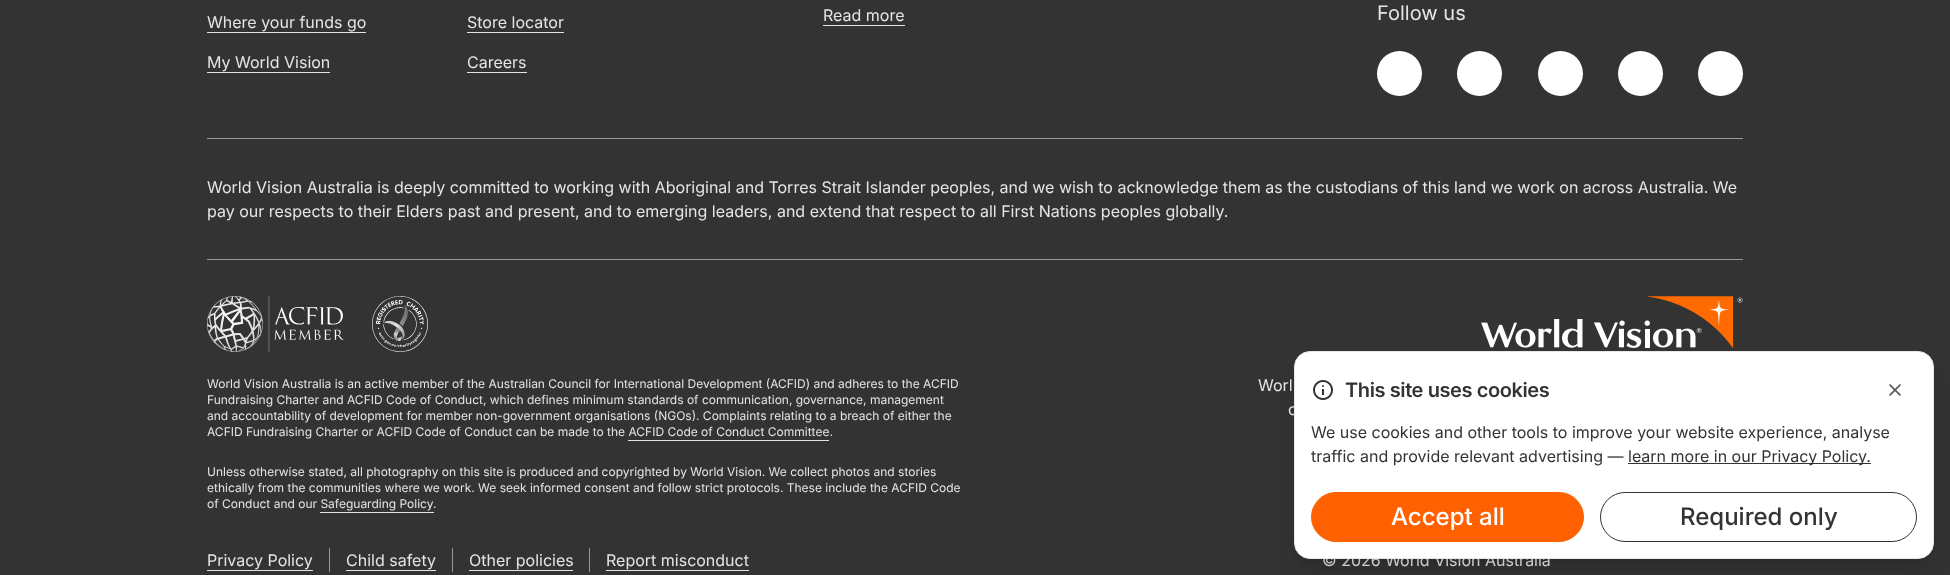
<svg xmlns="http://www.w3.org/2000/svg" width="1950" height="575">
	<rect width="100%" height="100%" fill="#333333" />
	<text x="207" y="28" font-family="Inter" font-size="16" fill="#E5E5E5">Where your funds go</text>
	<rect x="207" y="32" width="159" height="1" fill="#E5E5E5" />
	<text x="207" y="68" font-family="Inter" font-size="16" fill="#E5E5E5">My World Vision</text>
	<rect x="207" y="72" width="123" height="1" fill="#E5E5E5" />
	<text x="467" y="28" font-family="Inter" font-size="16" fill="#E5E5E5">Store locator</text>
	<rect x="467" y="32" width="97" height="1" fill="#E5E5E5" />
	<text x="467" y="68" font-family="Inter" font-size="16" fill="#E5E5E5">Careers</text>
	<rect x="467" y="72" width="60" height="1" fill="#E5E5E5" />
	<text x="823" y="21" font-family="Inter" font-size="16" fill="#E5E5E5">Read more</text>
	<rect x="823" y="25" width="82" height="1" fill="#E5E5E5" />
	<text x="1377" y="20" font-family="Inter" font-size="20" fill="#E5E5E5">Follow us</text>
	<circle cx="1399.5" cy="73.5" r="22.5" fill="#FFFFFF" />
	<circle cx="1479.5" cy="73.5" r="22.5" fill="#FFFFFF" />
	<circle cx="1560.5" cy="73.5" r="22.5" fill="#FFFFFF" />
	<circle cx="1640.5" cy="73.5" r="22.5" fill="#FFFFFF" />
	<circle cx="1720.5" cy="73.5" r="22.5" fill="#FFFFFF" />
	<rect x="207" y="138" width="1536" height="1" fill="#999999" />
	<rect x="207" y="259" width="1536" height="1" fill="#999999" />
	<g font-family="Inter" font-size="16" fill="#E5E5E5">
		<text x="207" y="193">World Vision Australia is deeply committed to working with Aboriginal and Torres Strait Islander peoples, and we wish to acknowledge them as the custodians of this land we work on across Australia. We</text>
		<text x="207" y="217">pay our respects to their Elders past and present, and to emerging leaders, and extend that respect to all First Nations peoples globally.</text>
	</g>
	<image x="207" y="296" width="137" height="56" href="assets/img1.png" />
	<image x="372" y="296" width="56" height="56" href="assets/img2.png" />
	<g font-family="Inter" font-size="12" fill="#E5E5E5">
		<text x="207" y="388">World Vision Australia is an active member of the Australian Council for International Development (ACFID) and adheres to the ACFID</text>
		<text x="207" y="404">Fundraising Charter and ACFID Code of Conduct, which defines minimum standards of communication, governance, management</text>
		<text x="207" y="420">and accountability of development for member non-government organisations (NGOs). Complaints relating to a breach of either the</text>
		<text x="207" y="436">ACFID Fundraising Charter or ACFID Code of Conduct can be made to the ACFID Code of Conduct Committee.</text>
	</g>
	<rect x="628" y="440" width="201" height="1" fill="#E5E5E5" />
	<g font-family="Inter" font-size="12" fill="#E5E5E5">
		<text x="207" y="476">Unless otherwise stated, all photography on this site is produced and copyrighted by World Vision. We collect photos and stories</text>
		<text x="207" y="492">ethically from the communities where we work. We seek informed consent and follow strict protocols. These include the ACFID Code</text>
		<text x="207" y="508">of Conduct and our Safeguarding Policy.</text>
	</g>
	<rect x="320" y="512" width="114" height="1" fill="#E5E5E5" />
	<image x="1481" y="296" width="262" height="52" href="assets/img3.png" />
	<g font-family="Inter" font-size="16" fill="#E5E5E5">
		<text x="1258" y="391">Worl</text>
		<text x="1288" y="415">c</text>
	</g>
	<rect x="329" y="548" width="1" height="24" fill="#999999" />
	<text x="207" y="566" font-family="Inter" font-size="16" fill="#E5E5E5">Privacy Policy</text>
	<rect x="207" y="570" width="106" height="1" fill="#E5E5E5" />
	<rect x="452" y="548" width="1" height="24" fill="#999999" />
	<text x="346" y="566" font-family="Inter" font-size="16" fill="#E5E5E5">Child safety</text>
	<rect x="346" y="570" width="90" height="1" fill="#E5E5E5" />
	<rect x="589" y="548" width="1" height="24" fill="#999999" />
	<text x="469" y="566" font-family="Inter" font-size="16" fill="#E5E5E5">Other policies</text>
	<rect x="469" y="570" width="104" height="1" fill="#E5E5E5" />
	<text x="606" y="566" font-family="Inter" font-size="16" fill="#E5E5E5">Report misconduct</text>
	<rect x="606" y="570" width="143" height="1" fill="#E5E5E5" />
	<text x="1322" y="566" font-family="Inter" font-size="16" fill="#E5E5E5">© 2026 World Vision Australia</text>
	<rect x="1300" y="365" width="628" height="196" rx="10" fill="#000000" fill-opacity="0.1" filter="blur(5px)" />
	<rect x="1299" y="376" width="630" height="198" rx="11" fill="#000000" fill-opacity="0.1" filter="blur(12.5px)" />
	<rect x="1294.5" y="351.5" width="639" height="207" rx="15.5" fill="#FFFFFF" stroke="#E5E7EB" />
	<image x="1313" y="380" width="20" height="20" href="assets/img4.png" />
	<text x="1345" y="397" font-family="Inter" font-size="20" font-weight="600" letter-spacing="-0.4" fill="#333333">This site uses cookies</text>
	<image x="1889" y="384" width="12" height="12" href="assets/img5.png" />
	<g font-family="Inter" font-size="16" fill="#333333">
		<text x="1311" y="438">We use cookies and other tools to improve your website experience, analyse</text>
		<text x="1311" y="462">traffic and provide relevant advertising —</text>
	</g>
	<rect x="1628" y="463" width="243" height="1" fill="#333333" />
	<text x="1628" y="462" font-family="Inter" font-size="16" fill="#333333">learn more in our Privacy Policy.</text>
	<rect x="1311.5" y="492.5" width="272" height="49" rx="24.5" fill="#FF6000" stroke="#FF6000" />
	<text x="1391" y="525" font-family="Inter" font-size="24" font-weight="500" fill="#FFFFFF">Accept all</text>
	<rect x="1600.5" y="492.5" width="316" height="49" rx="24.5" fill="none" stroke="#333333" />
	<text x="1680" y="525" font-family="Inter" font-size="24" font-weight="500" fill="#333333">Required only</text>
</svg>
